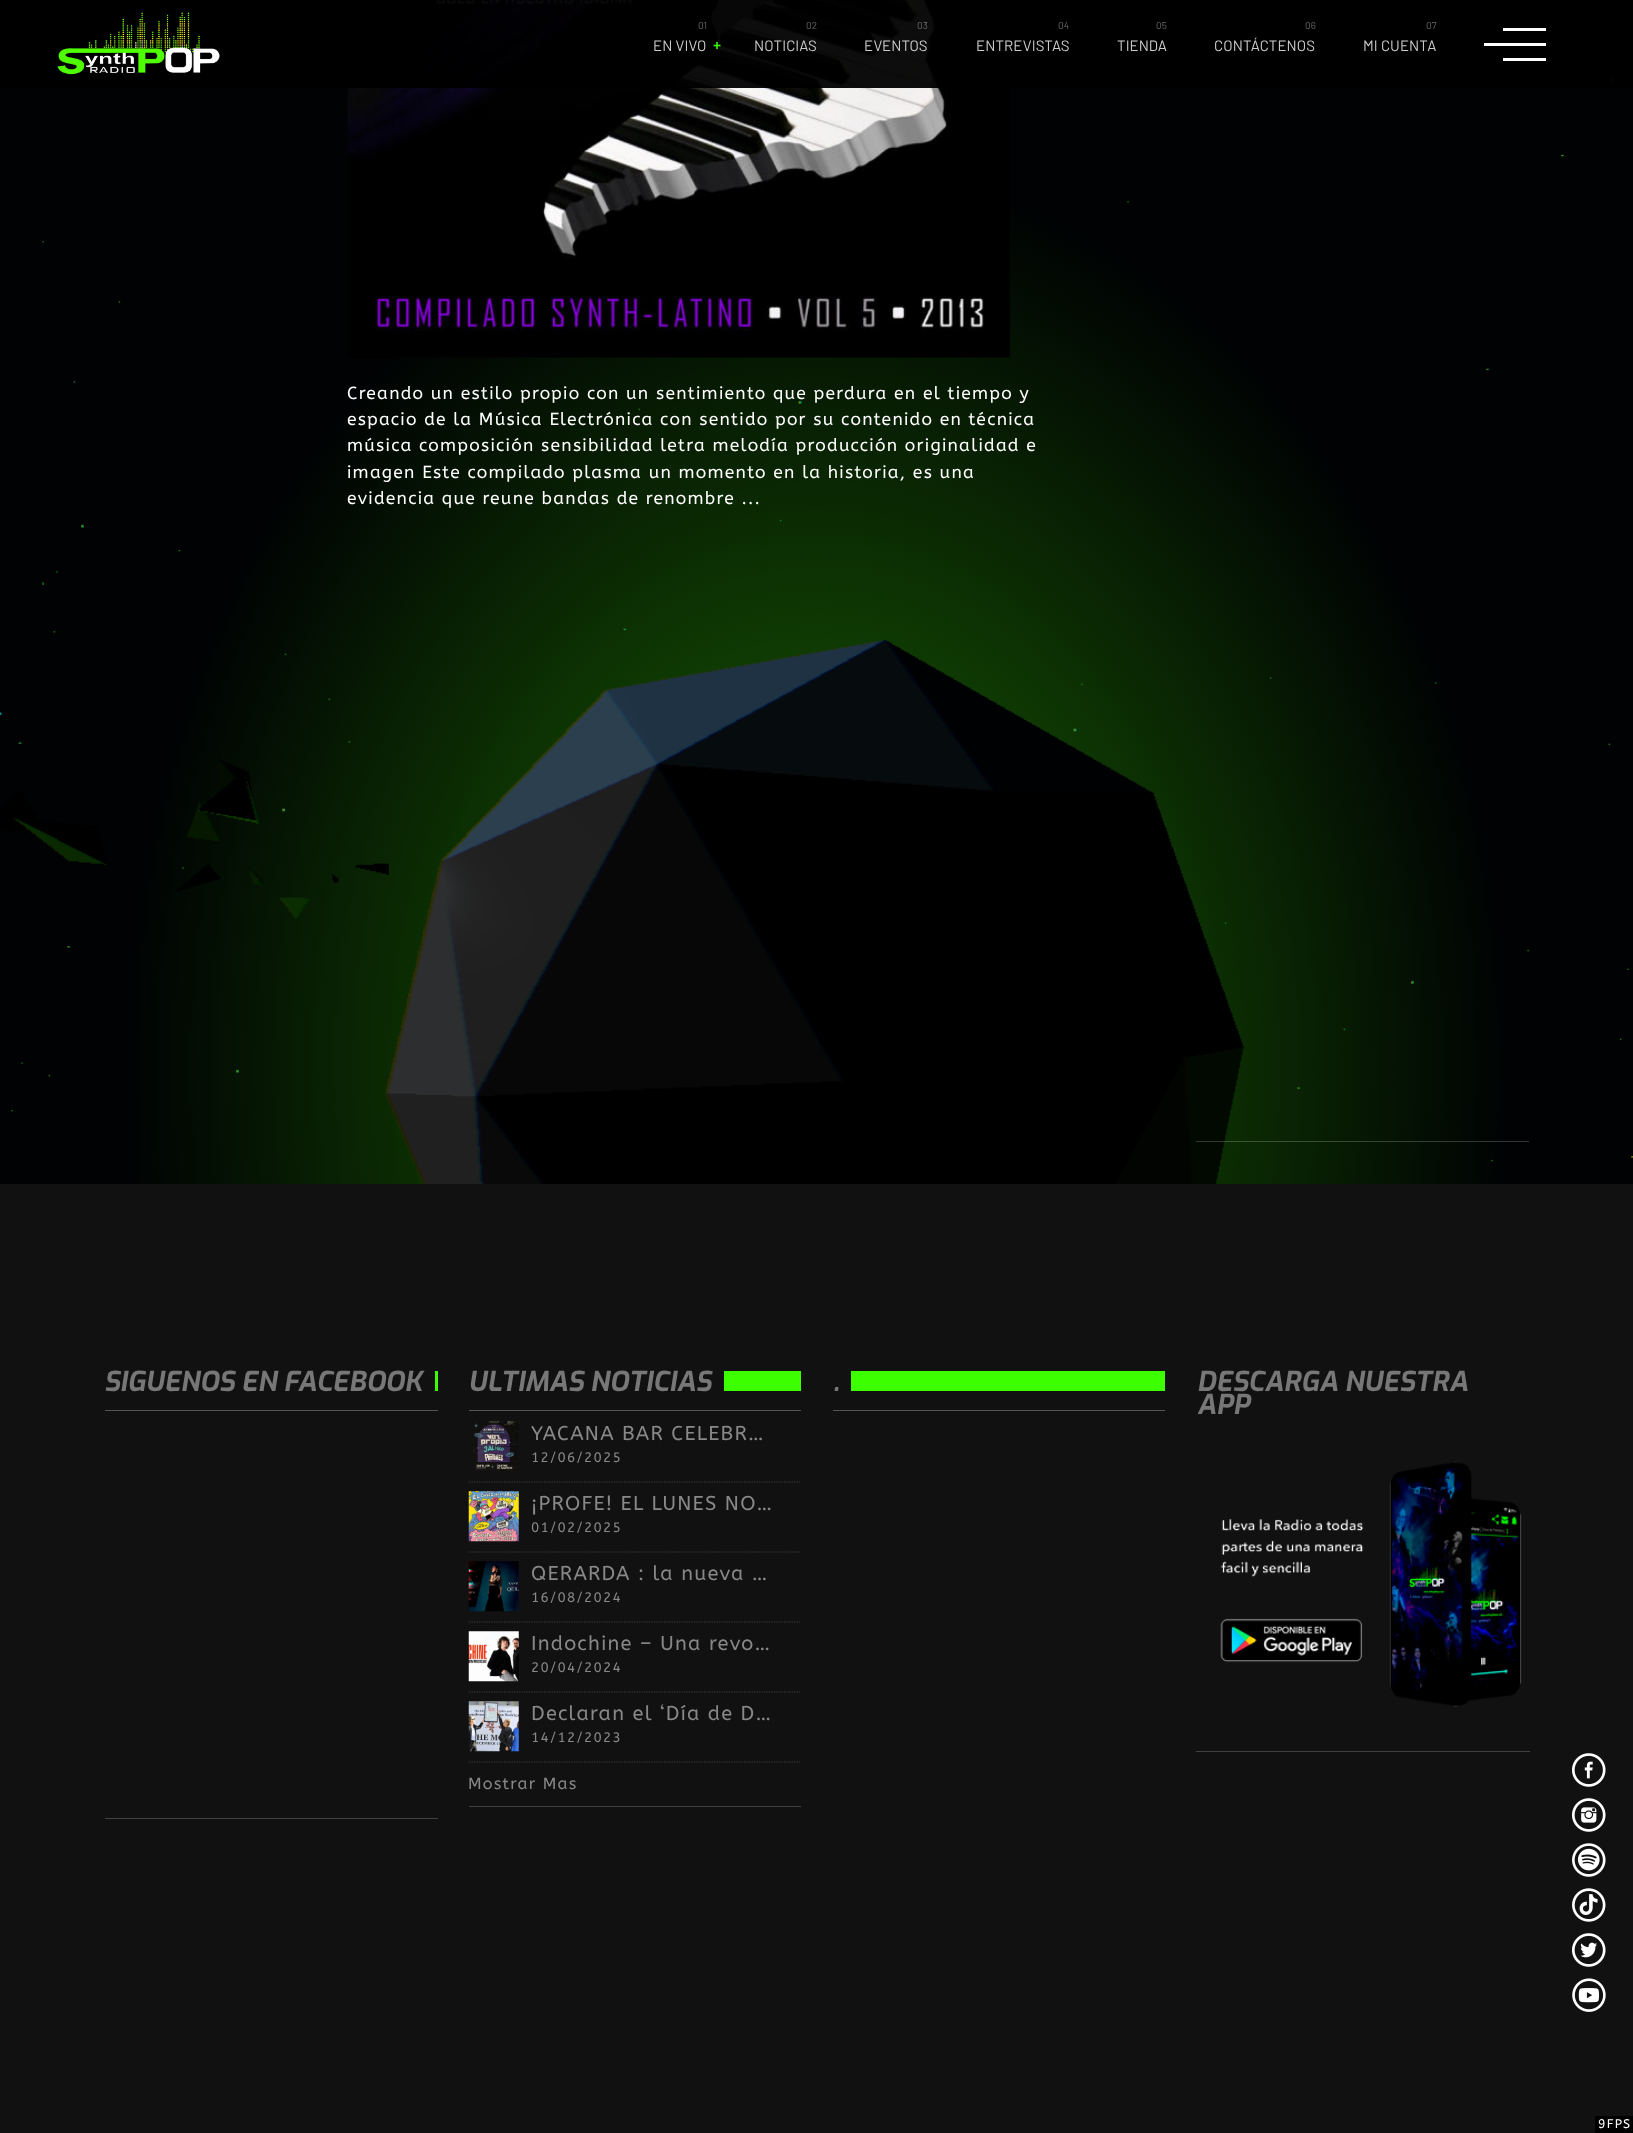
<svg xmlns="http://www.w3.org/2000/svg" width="1633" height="2133">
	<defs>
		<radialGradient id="g1" gradientUnits="userSpaceOnUse" cx="0" cy="0" r="1" gradientTransform="matrix(1155 0 0 1509 817 1067)"><stop offset="0" stop-color="#1C6B03" /><stop offset="0.6" stop-color="#000203" /></radialGradient>
	</defs>
	<rect width="100%" height="100%" fill="#FFFFFF" />
	<rect x="0" y="0" width="1633" height="1184" fill="url(#g1)" />
	<image x="0" y="24" width="1633" height="1160" href="assets/img1.png" />
	<image x="347" y="0" width="663" height="358" href="assets/img3.png" />
	<rect x="0" y="0" width="1633" height="88" fill="#000000" fill-opacity="0.95" />
	<image x="57" y="12" width="163" height="63" href="assets/img2.png" />
	<text x="698" y="29" font-family="Barlow" font-size="10" letter-spacing="0.1" fill="#666666">01</text>
	<text x="653" y="51" font-family="Barlow" font-size="15" letter-spacing="0.1" fill="#CCCCCC">EN VIVO</text>
	<text x="713" y="50" font-family="Liberation Sans" font-size="13.75" font-weight="700" fill="#3CFF00">+</text>
	<text x="806" y="29" font-family="Barlow" font-size="10" letter-spacing="0.1" fill="#666666">02</text>
	<text x="754" y="51" font-family="Barlow" font-size="15" letter-spacing="0.1" fill="#CCCCCC">NOTICIAS</text>
	<text x="917" y="29" font-family="Barlow" font-size="10" letter-spacing="0.1" fill="#6D6D6D">03</text>
	<text x="864" y="51" font-family="Barlow" font-size="15" letter-spacing="0.1" fill="#CCCCCC">EVENTOS</text>
	<text x="1058" y="29" font-family="Barlow" font-size="10" letter-spacing="0.1" fill="#666666">04</text>
	<text x="976" y="51" font-family="Barlow" font-size="15" letter-spacing="0.1" fill="#CCCCCC">ENTREVISTAS</text>
	<text x="1156" y="29" font-family="Barlow" font-size="10" letter-spacing="0.1" fill="#666666">05</text>
	<text x="1117" y="51" font-family="Barlow" font-size="15" letter-spacing="0.1" fill="#CCCCCC">TIENDA</text>
	<text x="1305" y="29" font-family="Barlow" font-size="10" letter-spacing="0.1" fill="#666666">06</text>
	<text x="1214" y="51" font-family="Barlow" font-size="15" letter-spacing="0.1" fill="#CCCCCC">CONTÁCTENOS</text>
	<text x="1426" y="29" font-family="Barlow" font-size="10" letter-spacing="0.1" fill="#666666">07</text>
	<text x="1363" y="51" font-family="Barlow" font-size="15" letter-spacing="0.1" fill="#CCCCCC">MI CUENTA</text>
	<rect x="1503" y="28" width="43" height="3" fill="#FFFFFF" />
	<rect x="1484" y="43" width="62" height="3" fill="#FFFFFF" />
	<rect x="1503" y="58" width="43" height="3" fill="#FFFFFF" />
	<g font-family="ABeeZee" font-size="17.5" letter-spacing="1.25" fill="#FFFFFF">
		<text x="347" y="399">Creando un estilo propio con un sentimiento que perdura en el tiempo y</text>
		<text x="347" y="425">espacio de la Música Electrónica con sentido por su contenido en técnica</text>
		<text x="347" y="451">música composición sensibilidad letra melodía producción originalidad e</text>
		<text x="347" y="478">imagen Este compilado plasma un momento en la historia, es una</text>
		<text x="347" y="504">evidencia que reune bandas de renombre ...</text>
	</g>
	<rect x="1196" y="1141" width="333" height="1" fill="#FFFFFF" fill-opacity="0.2" />
	<rect x="0" y="1184" width="1633" height="949" fill="#111111" />
	<rect x="105" y="1818" width="333" height="1" fill="#414141" />
	<rect x="105" y="1410" width="333" height="1" fill="#555555" />
	<rect x="435" y="1371" width="3" height="20" fill="#3CFF00" />
	<text x="104" y="1391" font-family="Exo" font-size="27.5" font-weight="700" font-style="italic" fill="#777777">SIGUENOS EN FACEBOOK</text>
	<rect x="469" y="1806" width="332" height="1" fill="#414141" />
	<rect x="469" y="1410" width="332" height="1" fill="#555555" />
	<rect x="724" y="1371" width="77" height="20" fill="#3CFF00" />
	<text x="468" y="1391" font-family="Exo" font-size="27.5" font-weight="700" font-style="italic" fill="#777777">ULTIMAS NOTICIAS</text>
	<path d="M469 1482H801" fill="none" stroke="#414141" stroke-width="1.2" stroke-dasharray="1.25 1.25" />
	<image x="470" y="1421" width="49" height="50" href="assets/img4.png" />
	<text x="531" y="1440" font-family="ABeeZee" font-size="20" letter-spacing="1.25" fill="#888888">YACANA BAR CELEBR…</text>
	<text x="531" y="1462" font-family="ABeeZee" font-size="13.75" letter-spacing="1.25" fill="#888888">12/06/2025</text>
	<path d="M469 1552H801" fill="none" stroke="#414141" stroke-width="1.2" stroke-dasharray="1.25 1.25" />
	<image x="468" y="1491" width="51" height="51" href="assets/img5.png" />
	<text x="531" y="1510" font-family="ABeeZee" font-size="20" letter-spacing="1.25" fill="#888888">¡PROFE! EL LUNES NO…</text>
	<text x="531" y="1532" font-family="ABeeZee" font-size="13.75" letter-spacing="1.25" fill="#888888">01/02/2025</text>
	<path d="M469 1622H801" fill="none" stroke="#414141" stroke-width="1.2" stroke-dasharray="1.25 1.25" />
	<image x="468" y="1561" width="51" height="51" href="assets/img6.png" />
	<text x="531" y="1580" font-family="ABeeZee" font-size="20" letter-spacing="1.25" fill="#888888">QERARDA : la nueva …</text>
	<text x="531" y="1602" font-family="ABeeZee" font-size="13.75" letter-spacing="1.25" fill="#888888">16/08/2024</text>
	<path d="M469 1692H801" fill="none" stroke="#414141" stroke-width="1.2" stroke-dasharray="1.25 1.25" />
	<image x="468" y="1631" width="51" height="51" href="assets/img7.png" />
	<text x="531" y="1650" font-family="ABeeZee" font-size="20" letter-spacing="1.25" fill="#888888">Indochine – Una revo…</text>
	<text x="531" y="1672" font-family="ABeeZee" font-size="13.75" letter-spacing="1.25" fill="#888888">20/04/2024</text>
	<path d="M469 1762H801" fill="none" stroke="#414141" stroke-width="1.2" stroke-dasharray="1.25 1.25" />
	<image x="468" y="1701" width="51" height="51" href="assets/img8.png" />
	<text x="531" y="1720" font-family="ABeeZee" font-size="20" letter-spacing="1.25" fill="#888888">Declaran el ‘Día de D…</text>
	<text x="531" y="1742" font-family="ABeeZee" font-size="13.75" letter-spacing="1.25" fill="#888888">14/12/2023</text>
	<text x="468" y="1789" font-family="ABeeZee" font-size="16.25" letter-spacing="1.25" fill="#888888">Mostrar Mas</text>
	<rect x="833" y="1410" width="332" height="1" fill="#555555" />
	<rect x="851" y="1371" width="314" height="20" fill="#3CFF00" />
	<text x="833" y="1391" font-family="Exo" font-size="27.5" font-weight="700" font-style="italic" fill="#777777">.</text>
	<rect x="1196" y="1751" width="334" height="1" fill="#414141" />
	<g font-family="Exo" font-size="27.5" font-weight="700" font-style="italic" fill="#777777">
		<text x="1197" y="1391">DESCARGA NUESTRA</text>
		<text x="1197" y="1414">APP</text>
	</g>
	<image x="1220" y="1461" width="302" height="246" href="assets/img9.png" />
	<image x="1572" y="1753" width="34" height="34" href="assets/img10.png" />
	<image x="1572" y="1798" width="34" height="34" href="assets/img11.png" />
	<image x="1572" y="1843" width="34" height="34" href="assets/img12.png" />
	<image x="1572" y="1888" width="34" height="34" href="assets/img13.png" />
	<image x="1572" y="1933" width="34" height="34" href="assets/img14.png" />
	<image x="1572" y="1978" width="34" height="34" href="assets/img15.png" />
	<rect x="1595" y="2116" width="38" height="17" fill="#000000" />
	<text x="1598" y="2128" font-family="ABeeZee" font-size="12.5" letter-spacing="1.25" fill="#FFFFFF">9FPS</text>
</svg>
